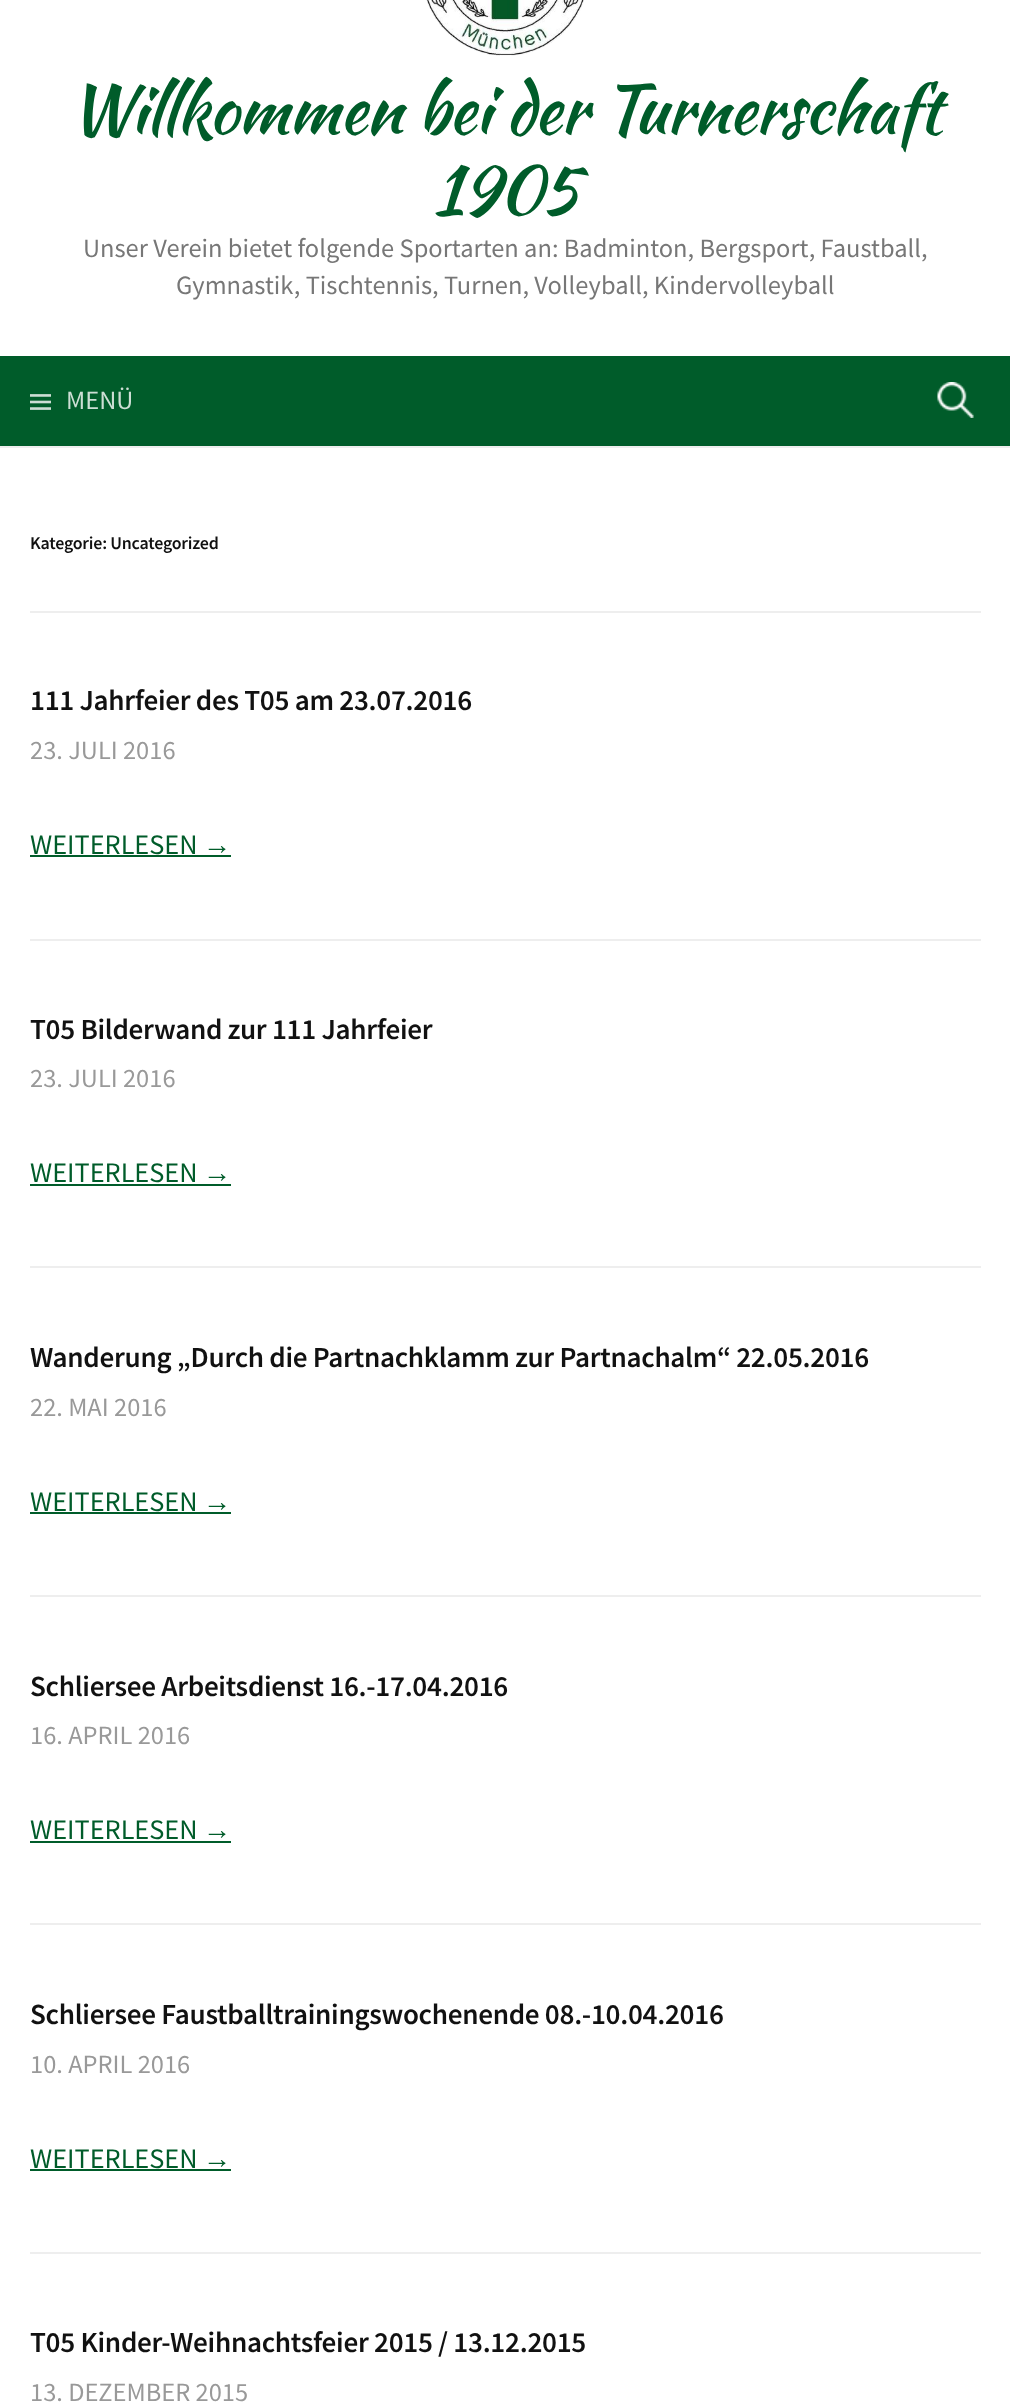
<svg xmlns="http://www.w3.org/2000/svg" width="1010" height="2407">
	<rect width="100%" height="100%" fill="#FFFFFF" />
	<rect x="0" y="446" width="1010" height="2" fill="#EEEEEE" />
	<image x="426" y="0" width="158" height="56" href="assets/img1.png" />
	<g font-family="Kaushan Script" font-size="67.5" letter-spacing="-0.7" fill="#005C2A">
		<text x="69" y="133">Willkommen bei der Turnerschaft</text>
		<text x="433" y="214">1905</text>
	</g>
	<g font-family="Source Sans Pro" font-size="26.45" fill="#777777">
		<text x="83" y="257">Unser Verein bietet folgende Sportarten an: Badminton, Bergsport, Faustball,</text>
		<text x="176" y="294">Gymnastik, Tischtennis, Turnen, Volleyball, Kindervolleyball</text>
	</g>
	<rect x="0" y="356" width="1010" height="90" fill="#005C2A" />
	<image x="30" y="394" width="21" height="16" href="assets/img2.png" />
	<text x="66" y="409" font-family="Source Sans Pro" font-size="26.45" fill="#CCDED4">MENÜ</text>
	<image x="937" y="382" width="37" height="36" href="assets/img3.png" />
	<rect x="30" y="611" width="951" height="2" fill="#EEEEEE" />
	<text x="30" y="549" font-family="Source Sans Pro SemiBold" font-size="17.9" font-weight="600" letter-spacing="-0.2" fill="#111111">Kategorie: Uncategorized</text>
	<rect x="30" y="939" width="951" height="2" fill="#EEEEEE" />
	<text x="30" y="710" font-family="Source Sans Pro SemiBold" font-size="29.15" font-weight="600" letter-spacing="-0.3" fill="#111111">111 Jahrfeier des T05 am 23.07.2016</text>
	<text x="30" y="759" font-family="Source Sans Pro" font-size="26.45" fill="#999999">23. JULI 2016</text>
	<text x="30" y="854" font-family="Source Sans Pro" font-size="28.25" fill="#005C2A">WEITERLESEN</text>
	<text x="203" y="854" font-family="Liberation Serif" font-size="28.25" fill="#005C2A">→</text>
	<rect x="30" y="855" width="201" height="2" fill="#005C2A" />
	<rect x="30" y="1266" width="951" height="2" fill="#EEEEEE" />
	<text x="30" y="1039" font-family="Source Sans Pro SemiBold" font-size="29.15" font-weight="600" letter-spacing="-0.3" fill="#111111">T05 Bilderwand zur 111 Jahrfeier</text>
	<text x="30" y="1087" font-family="Source Sans Pro" font-size="26.45" fill="#999999">23. JULI 2016</text>
	<text x="30" y="1182" font-family="Source Sans Pro" font-size="28.25" fill="#005C2A">WEITERLESEN</text>
	<text x="203" y="1182" font-family="Liberation Serif" font-size="28.25" fill="#005C2A">→</text>
	<rect x="30" y="1184" width="201" height="2" fill="#005C2A" />
	<rect x="30" y="1595" width="951" height="2" fill="#EEEEEE" />
	<text x="30" y="1367" font-family="Source Sans Pro SemiBold" font-size="29.15" font-weight="600" letter-spacing="-0.3" fill="#111111">Wanderung „Durch die Partnachklamm zur Partnachalm“ 22.05.2016</text>
	<text x="30" y="1416" font-family="Source Sans Pro" font-size="26.45" fill="#999999">22. MAI 2016</text>
	<text x="30" y="1511" font-family="Source Sans Pro" font-size="28.25" fill="#005C2A">WEITERLESEN</text>
	<text x="203" y="1511" font-family="Liberation Serif" font-size="28.25" fill="#005C2A">→</text>
	<rect x="30" y="1512" width="201" height="2" fill="#005C2A" />
	<rect x="30" y="1923" width="951" height="2" fill="#EEEEEE" />
	<text x="30" y="1696" font-family="Source Sans Pro SemiBold" font-size="29.15" font-weight="600" letter-spacing="-0.3" fill="#111111">Schliersee Arbeitsdienst 16.-17.04.2016</text>
	<text x="30" y="1744" font-family="Source Sans Pro" font-size="26.45" fill="#999999">16. APRIL 2016</text>
	<text x="30" y="1839" font-family="Source Sans Pro" font-size="28.25" fill="#005C2A">WEITERLESEN</text>
	<text x="203" y="1839" font-family="Liberation Serif" font-size="28.25" fill="#005C2A">→</text>
	<rect x="30" y="1841" width="201" height="2" fill="#005C2A" />
	<rect x="30" y="2252" width="951" height="2" fill="#EEEEEE" />
	<text x="30" y="2024" font-family="Source Sans Pro SemiBold" font-size="29.15" font-weight="600" letter-spacing="-0.3" fill="#111111">Schliersee Faustballtrainingswochenende 08.-10.04.2016</text>
	<text x="30" y="2073" font-family="Source Sans Pro" font-size="26.45" fill="#999999">10. APRIL 2016</text>
	<text x="30" y="2168" font-family="Source Sans Pro" font-size="28.25" fill="#005C2A">WEITERLESEN</text>
	<text x="203" y="2168" font-family="Liberation Serif" font-size="28.25" fill="#005C2A">→</text>
	<rect x="30" y="2169" width="201" height="2" fill="#005C2A" />
	<text x="30" y="2352" font-family="Source Sans Pro SemiBold" font-size="29.15" font-weight="600" letter-spacing="-0.3" fill="#111111">T05 Kinder-Weihnachtsfeier 2015 / 13.12.2015</text>
	<text x="30" y="2401" font-family="Source Sans Pro" font-size="26.45" fill="#999999">13. DEZEMBER 2015</text>
</svg>
